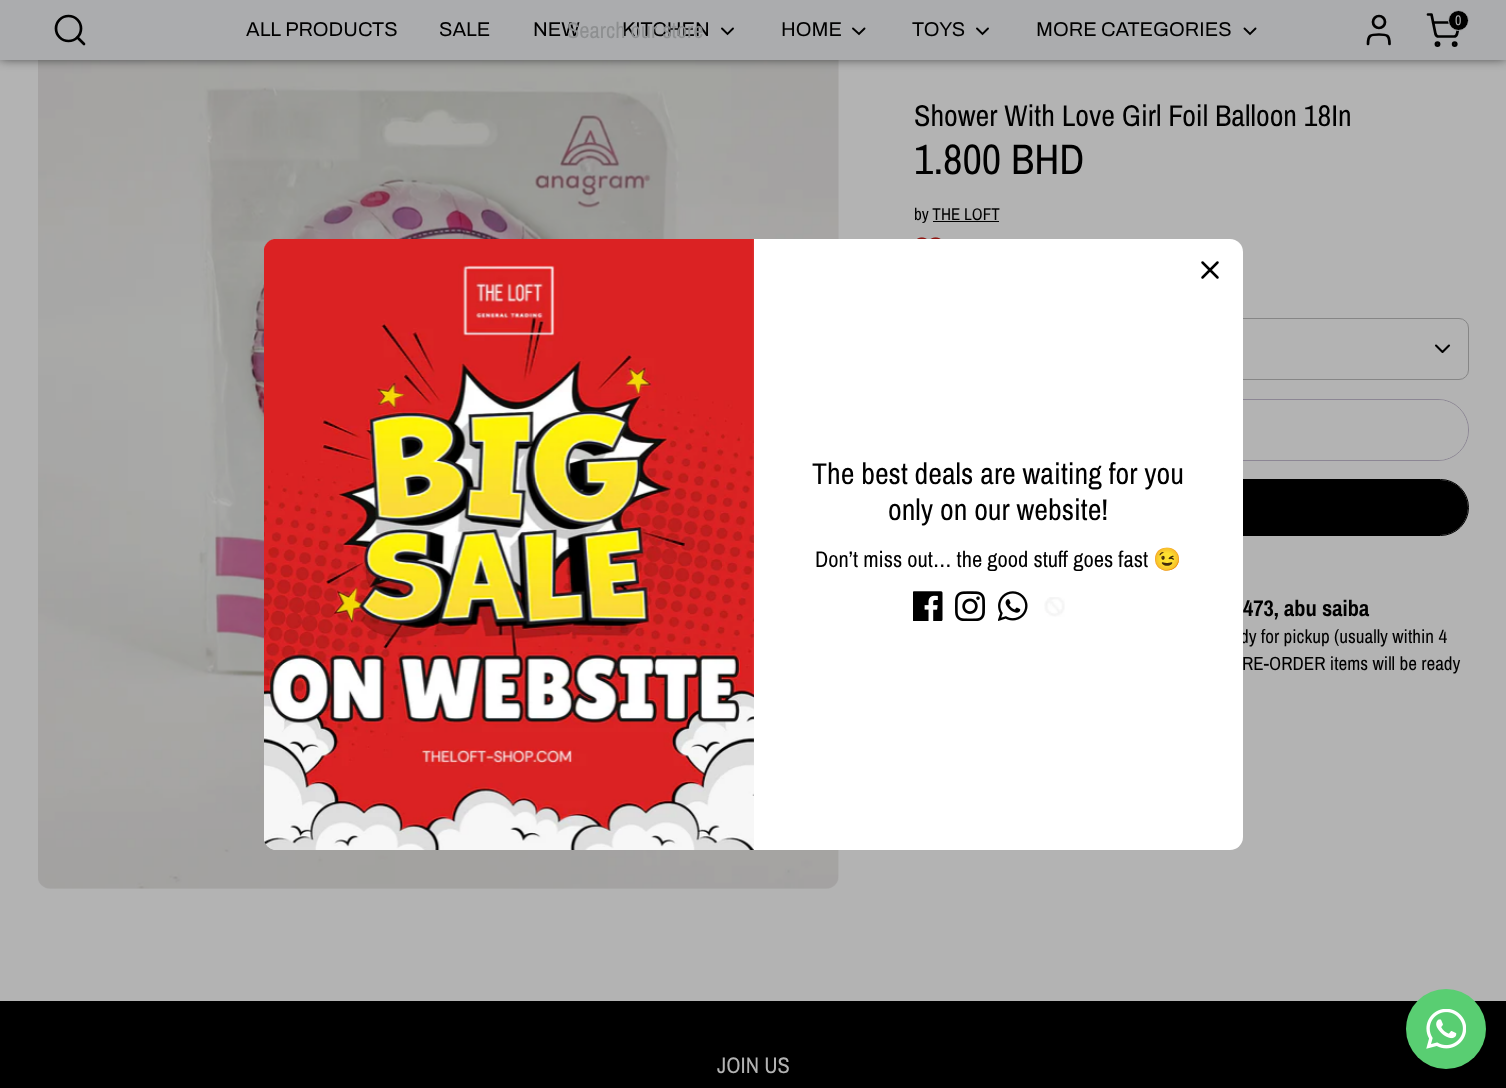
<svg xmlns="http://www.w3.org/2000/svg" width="1506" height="1088">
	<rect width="100%" height="100%" fill="#B3B3B3" />
	<image x="38" y="60" width="801" height="829" href="assets/img1.png" />
	<rect x="0" y="-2" width="1506" height="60" fill="#000000" fill-opacity="0.75" filter="blur(6px)" />
	<rect x="0" y="0" width="1506" height="60" fill="#ABACAE" />
	<circle cx="68.5" cy="28.5" r="12.5" fill="none" stroke="#000000" stroke-width="2.7" />
	<path d="M84 44L77.5 37.5" fill="none" stroke="#000000" stroke-width="2.7" stroke-linecap="round" stroke-linejoin="round" />
	<g font-family="Archivo" font-size="20" fill="#000000">
		<text x="533" y="36">NEW</text>
		<text x="622" y="36">KITCHEN</text>
	</g>
	<text x="567" y="38" font-family="Archivo Narrow" font-size="22.5" fill="#8D8F90">Search our store</text>
	<path d="M1389.5 44C1389.5 35 1387 34.5 1379 34.5C1370.5 34.5 1368 35 1368 44" fill="none" stroke="#000000" stroke-width="2.7" stroke-linecap="round" stroke-linejoin="round" />
	<circle cx="1379" cy="22" r="6" fill="none" stroke="#000000" stroke-width="2.7" />
	<circle cx="1437.5" cy="44.1" r="1.6" fill="none" stroke="#000000" stroke-width="2.7" />
	<circle cx="1454.7" cy="44.1" r="1.6" fill="none" stroke="#000000" stroke-width="2.7" />
	<path d="M1428 14.5H1431.5L1435.5 34C1436 35.5 1437 36.5 1438.5 36.5H1454C1455.5 36.5 1456.5 35.5 1457 34L1459.5 22.5H1433" fill="none" stroke="#000000" stroke-width="2.7" stroke-linecap="round" stroke-linejoin="round" />
	<circle cx="1458.5" cy="20.5" r="10" fill="#000000" stroke="#ABACAE" />
	<text x="1455" y="25" font-family="Archivo Narrow" font-size="14" fill="#ABACAE">0</text>
	<g font-family="Archivo" font-size="20" fill="#000000">
		<text x="246" y="36">ALL PRODUCTS</text>
		<text x="439" y="36">SALE</text>
	</g>
	<path d="M722 28.5L727.5 34L733 28.5" fill="none" stroke="#000000" stroke-width="1.9" stroke-linecap="round" />
	<text x="781" y="36" font-family="Archivo" font-size="20" fill="#000000">HOME</text>
	<path d="M853 28.5L859 34L864.5 28.5" fill="none" stroke="#000000" stroke-width="1.9" stroke-linecap="round" />
	<text x="912" y="36" font-family="Archivo" font-size="20" fill="#000000">TOYS</text>
	<path d="M977 28.5L982.5 34L988 28.5" fill="none" stroke="#000000" stroke-width="1.9" stroke-linecap="round" />
	<text x="1036" y="36" font-family="Archivo" font-size="20" fill="#000000">MORE CATEGORIES</text>
	<path d="M1244.5 28.5L1250 34L1255.5 28.5" fill="none" stroke="#000000" stroke-width="1.9" stroke-linecap="round" />
	<text x="914" y="126" font-family="Archivo Narrow" font-size="30" fill="#000000">Shower With Love Girl Foil Balloon 18In</text>
	<text x="914" y="174" font-family="Archivo Narrow" font-size="42.5" fill="#000000">1.800 BHD</text>
	<text x="914" y="220" font-family="Archivo Narrow" font-size="17" fill="#000000">by THE LOFT</text>
	<rect x="933" y="221" width="66" height="1" fill="#000000" />
	<image x="917" y="237" width="24" height="2" href="assets/img2.png" />
	<rect x="914.5" y="318.5" width="554" height="61" rx="9.5" fill="none" stroke="#868686" />
	<path d="M1436 345.5L1442.5 352L1449 345.5" fill="none" stroke="#000000" stroke-width="2.1" stroke-linecap="round" stroke-linejoin="round" />
	<rect x="914.5" y="399.5" width="554" height="61" rx="30.5" fill="none" stroke="#8C8694" />
	<rect x="915" y="400" width="553" height="60" rx="30" fill="#B3B3B3" />
	<rect x="914.5" y="479.5" width="554" height="56" rx="28" fill="none" stroke="#000000" />
	<rect x="915" y="480" width="553" height="55" rx="27.5" fill="#000000" />
	<text x="1243" y="616" font-family="Archivo Narrow" font-size="22.5" font-weight="700" fill="#000000">473, abu saiba</text>
	<g font-family="Archivo Narrow" font-size="19.1" fill="#000000">
		<text x="1240" y="643">dy for pickup (usually within 4</text>
		<text x="1242" y="670">RE-ORDER items will be ready</text>
	</g>
	<rect x="264" y="239" width="979" height="611" rx="13" fill="#FFFFFF" />
	<path d="M1217.5 262.5L1202.5 277.5M1202.5 262.5L1217.5 277.5" fill="none" stroke="#000000" stroke-width="2.5" stroke-linecap="round" />
	<image x="264" y="239" width="490" height="611" href="assets/img3.png" />
	<g font-family="Archivo Narrow" font-size="30" fill="#000000">
		<text x="812" y="484">The best deals are waiting for you</text>
		<text x="888" y="520">only on our website!</text>
	</g>
	<text x="815" y="567" font-family="Archivo Narrow" font-size="22.5" fill="#000000">Don’t miss out… the good stuff goes fast</text>
	<text x="1153" y="567" font-family="Noto Color Emoji" font-size="22.5" fill="#000000">😉</text>
	<image x="913" y="591" width="30" height="30" href="assets/img4.png" />
	<image x="955" y="591" width="30" height="30" href="assets/img5.png" />
	<image x="998" y="591" width="30" height="30" href="assets/img6.png" />
	<image x="1044" y="597" width="21" height="20" href="assets/img7.png" />
	<rect x="0" y="1001" width="1506" height="87" fill="#000000" />
	<text x="717" y="1073" font-family="Archivo Narrow" font-size="22.5" fill="#B3B3B3">JOIN US</text>
	<circle cx="1446" cy="1029" r="40" fill="#59CE72" />
	<image x="1426" y="1009" width="40" height="40" href="assets/img8.png" />
</svg>
